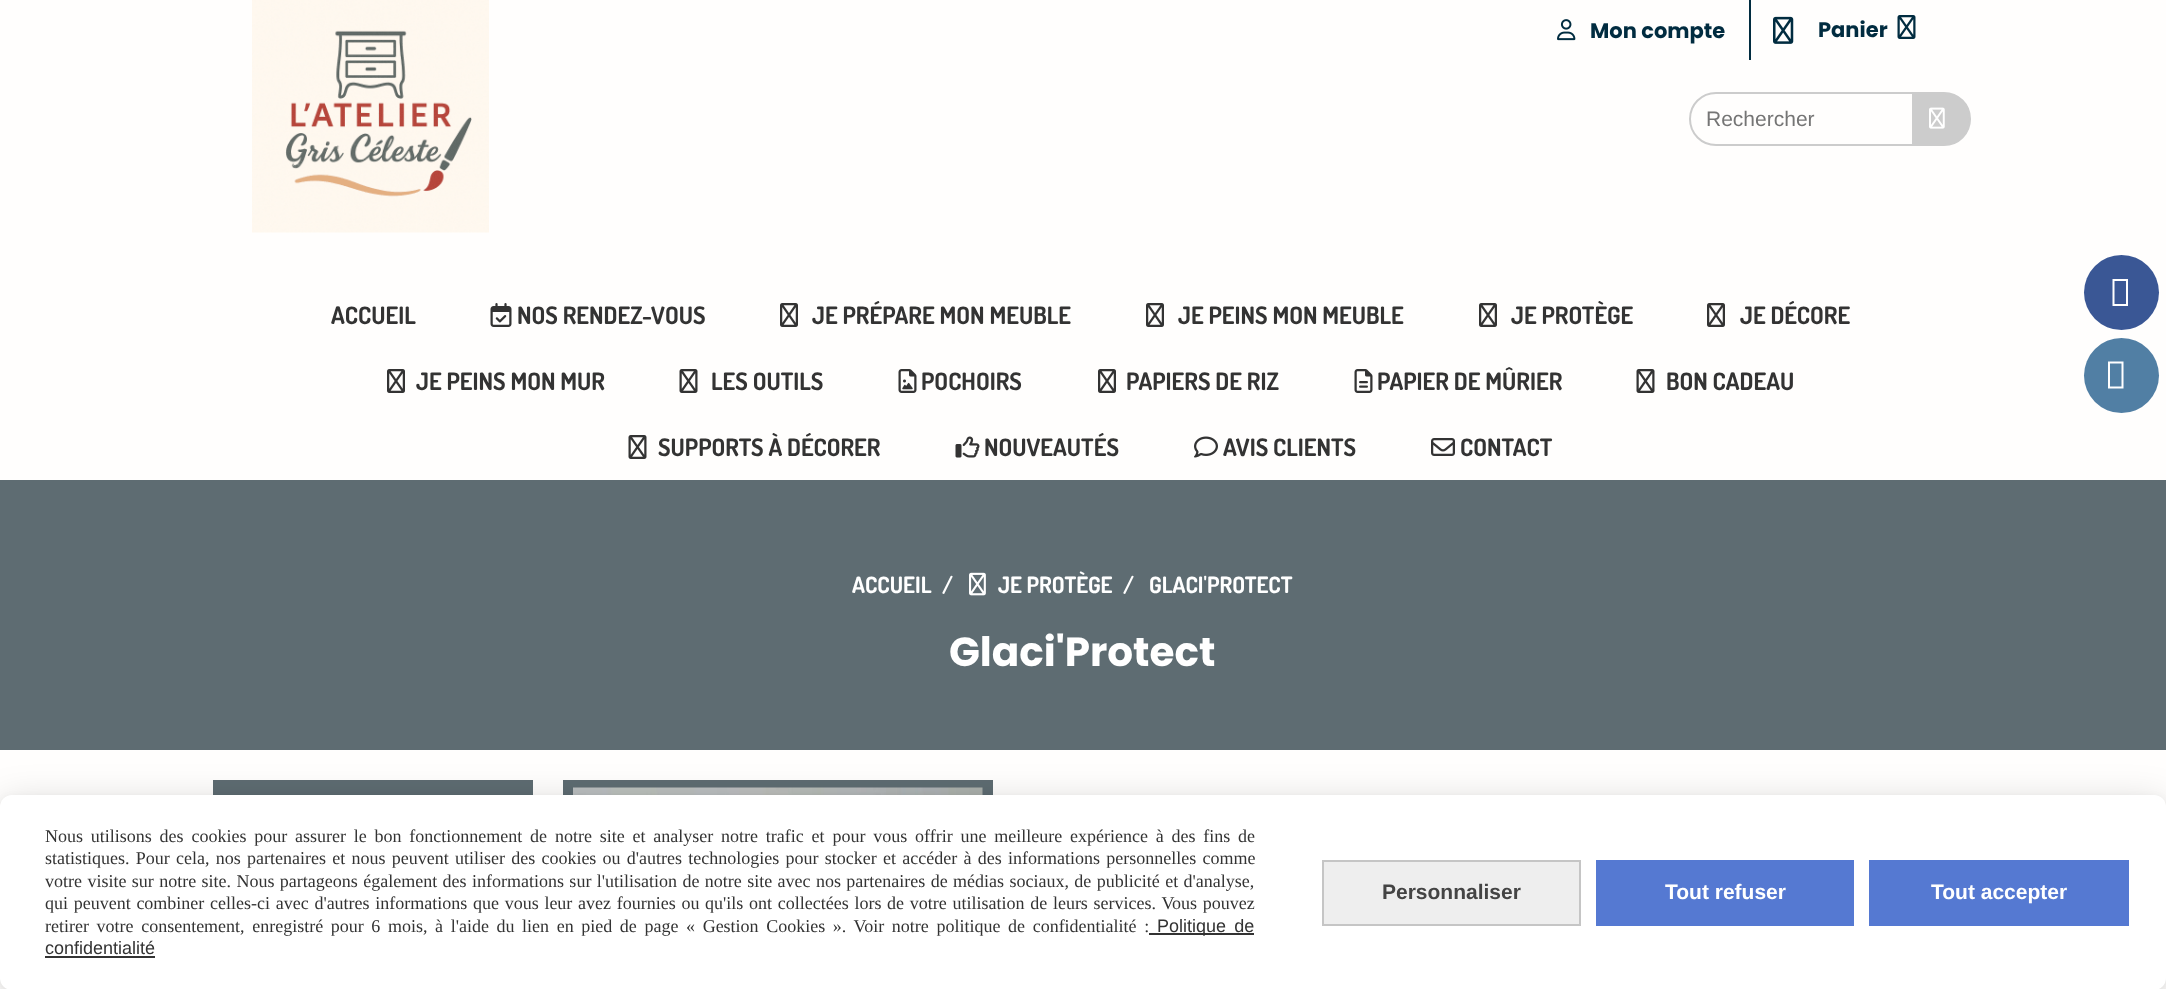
<svg xmlns="http://www.w3.org/2000/svg" width="2166" height="989">
	<rect width="100%" height="100%" fill="#FFFEFD" />
	<image x="252" y="0" width="237" height="233" href="assets/img1.png" />
	<rect x="1749" y="0" width="2" height="60" fill="#012C40" />
	<image x="1557" y="19" width="19" height="22" href="assets/img2.png" />
	<text x="1590" y="38" font-family="Poppins" font-size="21" font-weight="700" fill="#012C40">Mon compte</text>
	<image x="1773" y="16" width="21" height="28" href="assets/img3.png" />
	<text x="1818" y="37" font-family="Poppins" font-size="21" font-weight="700" fill="#012C40">Panier</text>
	<image x="1897" y="15" width="19" height="24" href="assets/img4.png" />
	<path d="M1716 93H1913V145H1716C1701.5 145 1690 133.5 1690 119C1690 104.5 1701.5 93 1716 93Z" fill="none" stroke="#CCCCCC" stroke-width="2" />
	<text x="1706" y="126" font-family="Liberation Sans" font-size="21" fill="#757575">Rechercher</text>
	<path d="M1915 93H1944C1958.5 93 1970 104.5 1970 119C1970 133.5 1958.5 145 1944 145H1915Z" fill="#CCCCCC" stroke="#CCCCCC" stroke-width="2" />
	<image x="1929" y="107" width="16" height="22" href="assets/img5.png" />
	<text x="331" y="324" font-family="Dosis" font-size="24" font-weight="700" fill="#333333">ACCUEIL</text>
	<image x="490" y="303" width="22" height="24" href="assets/img6.png" />
	<text x="517" y="324" font-family="Dosis" font-size="24" font-weight="700" fill="#333333">NOS RENDEZ-VOUS</text>
	<image x="780" y="303" width="18" height="24" href="assets/img7.png" />
	<text x="812" y="324" font-family="Dosis" font-size="24" font-weight="700" fill="#333333">JE PRÉPARE MON MEUBLE</text>
	<image x="1146" y="303" width="18" height="24" href="assets/img7.png" />
	<text x="1178" y="324" font-family="Dosis" font-size="24" font-weight="700" fill="#333333">JE PEINS MON MEUBLE</text>
	<image x="1479" y="303" width="18" height="24" href="assets/img7.png" />
	<text x="1511" y="324" font-family="Dosis" font-size="24" font-weight="700" fill="#333333">JE PROTÈGE</text>
	<image x="1707" y="303" width="18" height="24" href="assets/img7.png" />
	<text x="1740" y="324" font-family="Dosis" font-size="24" font-weight="700" fill="#333333">JE DÉCORE</text>
	<image x="387" y="369" width="18" height="24" href="assets/img7.png" />
	<text x="416" y="390" font-family="Dosis" font-size="24" font-weight="700" fill="#333333">JE PEINS MON MUR</text>
	<image x="679" y="369" width="19" height="24" href="assets/img8.png" />
	<text x="711" y="390" font-family="Dosis" font-size="24" font-weight="700" fill="#333333">LES OUTILS</text>
	<image x="898" y="369" width="19" height="24" href="assets/img9.png" />
	<text x="921" y="390" font-family="Dosis" font-size="24" font-weight="700" fill="#333333">POCHOIRS</text>
	<image x="1098" y="369" width="18" height="24" href="assets/img7.png" />
	<text x="1126" y="390" font-family="Dosis" font-size="24" font-weight="700" fill="#333333">PAPIERS DE RIZ</text>
	<image x="1354" y="369" width="19" height="24" href="assets/img10.png" />
	<text x="1377" y="390" font-family="Dosis" font-size="24" font-weight="700" fill="#333333">PAPIER DE MÛRIER</text>
	<image x="1636" y="369" width="19" height="24" href="assets/img8.png" />
	<text x="1666" y="390" font-family="Dosis" font-size="24" font-weight="700" fill="#333333">BON CADEAU</text>
	<image x="628" y="435" width="19" height="24" href="assets/img8.png" />
	<text x="658" y="456" font-family="Dosis" font-size="24" font-weight="700" fill="#333333">SUPPORTS À DÉCORER</text>
	<image x="955" y="436" width="25" height="22" href="assets/img11.png" />
	<text x="984" y="456" font-family="Dosis" font-size="24" font-weight="700" fill="#333333">NOUVEAUTÉS</text>
	<image x="1194" y="436" width="24" height="22" href="assets/img12.png" />
	<text x="1223" y="456" font-family="Dosis" font-size="24" font-weight="700" fill="#333333">AVIS CLIENTS</text>
	<image x="1431" y="438" width="24" height="18" href="assets/img13.png" />
	<text x="1460" y="456" font-family="Dosis" font-size="24" font-weight="700" fill="#333333">CONTACT</text>
	<rect x="0" y="480" width="2166" height="270" fill="#5E6C72" />
	<g font-family="Dosis" font-size="22.5" font-weight="700" fill="#FFFFFF">
		<text x="852" y="593">ACCUEIL</text>
		<text x="942" y="593">/</text>
	</g>
	<image x="969" y="572" width="17" height="24" href="assets/img14.png" />
	<g font-family="Dosis" font-size="22.5" font-weight="700" fill="#FFFFFF">
		<text x="998" y="593">JE PROTÈGE</text>
		<text x="1123" y="593">/</text>
		<text x="1149" y="593">GLACI'PROTECT</text>
	</g>
	<text x="949" y="666" font-family="Poppins" font-size="40.5" font-weight="700" fill="#FFFFFF">Glaci'Protect</text>
	<rect x="563" y="780" width="430" height="15" fill="#5E6C72" />
	<image x="573" y="787" width="410" height="8" href="assets/img15.png" />
	<rect x="214" y="781" width="318" height="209" fill="none" stroke="#5E6C72" stroke-width="2" />
	<rect x="215" y="782" width="316" height="13" fill="#5E6C72" />
	<circle cx="2121.5" cy="292.5" r="37.5" fill="#3A5795" />
	<path d="M2112.5 306V279H2128V306ZM2114.5 304H2126V281H2114.5Z" fill="#FFFFFF" />
	<circle cx="2121.5" cy="375.5" r="37.5" fill="#517FA4" />
	<path d="M2108 388.5V361.5H2123.5V388.5ZM2110 386.5H2121.5V363.5H2110Z" fill="#FFFFFF" />
	<rect x="0" y="798" width="2166" height="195" rx="12" fill="#000000" fill-opacity="0.05" filter="blur(4.5px)" />
	<rect x="0" y="801" width="2166" height="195" rx="12" fill="#000000" fill-opacity="0.15" filter="blur(18px)" />
	<rect x="0" y="795" width="2166" height="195" rx="12" fill="#FFFFFF" />
	<g font-family="Liberation Serif" font-size="18" fill="#333333">
		<text x="45" y="842" word-spacing="3.3">Nous utilisons des cookies pour assurer le bon fonctionnement de notre site et analyser notre trafic et pour vous offrir une meilleure expérience à des fins de</text>
		<text x="45" y="864" word-spacing="1.75">statistiques. Pour cela, nos partenaires et nous peuvent utiliser des cookies ou d'autres technologies pour stocker et accéder à des informations personnelles comme</text>
		<text x="45" y="887" word-spacing="0.9">votre visite sur notre site. Nous partageons également des informations sur l'utilisation de notre site avec nos partenaires de médias sociaux, de publicité et d'analyse,</text>
		<text x="45" y="909" word-spacing="1.2">qui peuvent combiner celles-ci avec d'autres informations que vous leur avez fournies ou qu'ils ont collectées lors de votre utilisation de leurs services. Vous pouvez</text>
		<text x="45" y="932" word-spacing="3.1">retirer votre consentement, enregistré pour 6 mois, à l'aide du lien en pied de page « Gestion Cookies ». Voir notre politique de confidentialité :</text>
	</g>
	<rect x="1149" y="933" width="105" height="2" fill="#333333" />
	<g font-family="Liberation Sans" font-size="18" fill="#333333">
		<text x="1157" y="932" word-spacing="3.1">Politique de</text>
		<text x="45" y="954">confidentialité</text>
	</g>
	<rect x="45" y="956" width="110" height="2" fill="#333333" />
	<rect x="1323" y="861" width="257" height="64" fill="#EEEEEE" stroke="#C5C5C5" stroke-width="2" />
	<text x="1382" y="899" font-family="Liberation Sans" font-size="21" font-weight="700" fill="#444444">Personnaliser</text>
	<rect x="1596" y="860" width="258" height="66" fill="#5579D2" />
	<text x="1665" y="899" font-family="Liberation Sans" font-size="21" font-weight="700" fill="#FFFFFF">Tout refuser</text>
	<rect x="1869" y="860" width="260" height="66" fill="#5579D2" />
	<text x="1931" y="899" font-family="Liberation Sans" font-size="21" font-weight="700" fill="#FFFFFF">Tout accepter</text>
</svg>
